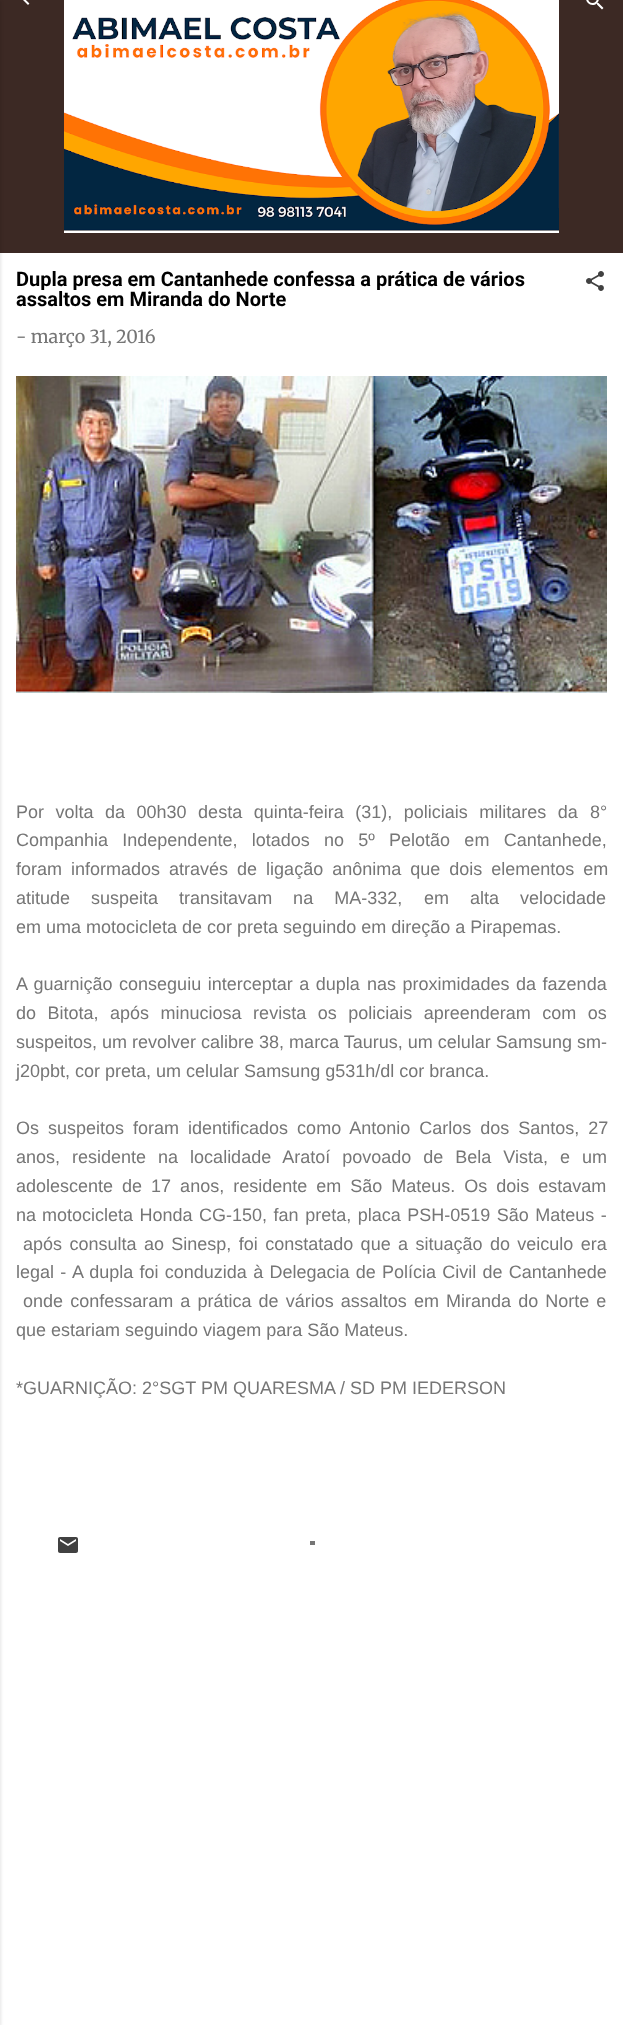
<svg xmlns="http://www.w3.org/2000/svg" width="623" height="2025">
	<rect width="100%" height="100%" fill="#3C2924" />
	<rect x="0" y="253" width="623" height="1772" fill="#FFFFFF" />
	<rect x="-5" y="1" width="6" height="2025" fill="#000000" fill-opacity="0.1" filter="blur(1.5px)" />
	<image x="23" y="0" width="7" height="5" href="assets/img1.png" />
	<image x="64" y="0" width="495" height="233" href="assets/img2.png" />
	<image x="586" y="0" width="18" height="10" href="assets/img3.png" />
	<g font-family="Roboto" font-size="20" font-weight="700" fill="#000000">
		<text x="16" y="286">Dupla presa em Cantanhede confessa a prática de vários</text>
		<text x="16" y="306">assaltos em Miranda do Norte</text>
	</g>
	<image x="586" y="271" width="18" height="20" href="assets/img4.png" />
	<text x="16" y="343" font-family="Merriweather" font-size="18" font-weight="300" fill="#767676">- março 31, 2016</text>
	<image x="16" y="376" width="591" height="317" href="assets/img5.png" />
	<g font-family="Liberation Sans" font-size="18" fill="#767676">
		<text x="16" y="818" word-spacing="6.5">Por volta da 00h30 desta quinta-feira (31), policiais militares da</text>
		<text x="590" y="818">8°</text>
		<text x="16" y="846" word-spacing="9.25">Companhia Independente, lotados no 5º Pelotão em Cantanhede,</text>
		<text x="16" y="875" word-spacing="4">foram informados através de ligação anônima que dois elementos em</text>
		<text x="16" y="904" word-spacing="16">atitude suspeita transitavam na MA-332,</text>
		<text x="424" y="904" word-spacing="16">em alta velocidade</text>
		<text x="16" y="933">em uma motocicleta de cor preta seguindo em direção a Pirapemas.</text>
		<text x="16" y="990" word-spacing="1.5">A guarnição conseguiu interceptar a dupla</text>
		<text x="367" y="990" word-spacing="1.5">nas proximidades da fazenda</text>
		<text x="16" y="1019" word-spacing="6.5">do Bitota, após minuciosa revista os policiais apreenderam com os</text>
		<text x="16" y="1048">suspeitos, um revolver calibre 38, marca Taurus, um celular Samsung sm-</text>
		<text x="16" y="1077">j20pbt, cor preta, um celular Samsung g531h/dl cor branca.</text>
		<text x="16" y="1134" word-spacing="4">Os suspeitos foram identificados como Antonio Carlos dos Santos, 27</text>
		<text x="16" y="1163" word-spacing="7">anos, residente na localidade Aratoí povoado de Bela Vista, e um</text>
		<text x="16" y="1192" word-spacing="4">adolescente de 17 anos, residente em São Mateus. Os dois estavam</text>
		<text x="16" y="1221">na</text>
		<text x="42" y="1221" word-spacing="1.5">motocicleta Honda CG-150, fan preta, placa PSH-0519 São Mateus -</text>
		<text x="23" y="1250" word-spacing="2.4">após consulta ao Sinesp, foi constatado que a situação do veiculo era</text>
		<text x="16" y="1278" word-spacing="1.25">legal -</text>
		<text x="72" y="1278" word-spacing="1.25">A dupla foi conduzida à Delegacia de Polícia Civil de Cantanhede</text>
		<text x="23" y="1307" word-spacing="2.1">onde confessaram a prática de vários assaltos em Miranda do Norte e</text>
		<text x="16" y="1336">que estariam seguindo viagem para São Mateus.</text>
		<text x="16" y="1394">*GUARNIÇÃO: 2°SGT PM QUARESMA / SD PM IEDERSON</text>
	</g>
	<image x="58" y="1537" width="20" height="16" href="assets/img6.png" />
	<rect x="310" y="1541" width="5" height="4" fill="#757575" />
</svg>
